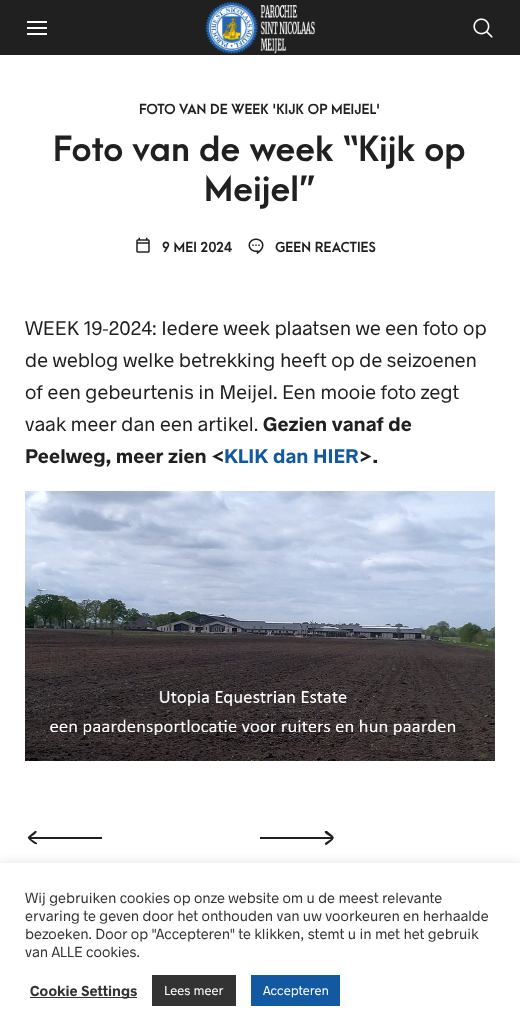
<svg xmlns="http://www.w3.org/2000/svg" width="520" height="1036">
	<rect width="100%" height="100%" fill="#FFFFFF" />
	<rect x="0" y="0" width="520" height="55" fill="#202020" />
	<image x="27" y="21" width="20" height="14" href="assets/img1.png" />
	<image x="205" y="1" width="110" height="54" href="assets/img2.png" />
	<image x="473" y="18" width="20" height="20" href="assets/img3.png" />
	<text x="139" y="114" font-family="'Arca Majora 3'" font-size="13.3" font-weight="700" fill="#202020">FOTO VAN DE WEEK 'KIJK OP MEIJEL'</text>
	<g font-family="'Arca Majora 3'" font-size="33.25" font-weight="700" fill="#202020">
		<text x="53" y="161">Foto van de week “Kijk op</text>
		<text x="204" y="201">Meijel”</text>
	</g>
	<image x="136" y="237" width="14" height="16" href="assets/img4.png" />
	<text x="162" y="252" font-family="'Arca Majora 3'" font-size="13.3" font-weight="700" fill="#202020">9 MEI 2024</text>
	<image x="248" y="238" width="16" height="17" href="assets/img5.png" />
	<text x="275" y="252" font-family="'Arca Majora 3'" font-size="13.3" font-weight="700" fill="#202020">GEEN REACTIES</text>
	<g font-family="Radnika" font-size="20" fill="#202020">
		<text x="25" y="335">WEEK 19-2024: Iedere week plaatsen we een foto op</text>
		<text x="25" y="367">de weblog welke betrekking heeft op de seizoenen</text>
		<text x="25" y="399">of een gebeurtenis in Meijel. Een mooie foto zegt</text>
		<text x="25" y="431">vaak meer dan een artikel.</text>
	</g>
	<g font-family="Radnika" font-size="20" font-weight="700" fill="#202020">
		<text x="263" y="431">Gezien vanaf de</text>
		<text x="25" y="463">Peelweg, meer zien &lt;</text>
	</g>
	<text x="224" y="463" font-family="Radnika" font-size="20" font-weight="700" fill="#1359A1">KLIK dan HIER</text>
	<text x="359" y="463" font-family="Radnika" font-size="20" font-weight="700" fill="#202020">&gt;.</text>
	<image x="25" y="491" width="470" height="270" href="assets/img6.png" />
	<path d="M35 831H36C39 832 32 836 31 837H102V839H31L37 843V844C35 845 32 842 32 842C30 840 26 838 29 836Z" fill="#202020" />
	<path d="M327 831C334 837 337 837 329 843C328 844 325 846 325 844V843L331 839H260V837H331C330 836 323 833 325 831Z" fill="#202020" />
	<rect x="0" y="862" width="520" height="173" fill="#ACABAB" fill-opacity="0.3" filter="blur(5px)" />
	<rect x="0" y="863" width="520" height="173" fill="#FFFFFF" />
	<g font-family="Radnika" font-size="14.7" fill="#333333">
		<text x="25" y="903">Wij gebruiken cookies op onze website om u de meest relevante</text>
		<text x="25" y="921">ervaring te geven door het onthouden van uw voorkeuren en herhaalde</text>
		<text x="25" y="939">bezoeken. Door op "Accepteren" te klikken, stemt u in met het gebruik</text>
		<text x="25" y="957">van ALLE cookies.</text>
	</g>
	<rect x="30" y="997" width="107" height="1" fill="#333333" />
	<text x="30" y="996" font-family="Radnika" font-size="14.7" font-weight="700" fill="#333333">Cookie Settings</text>
	<rect x="152" y="975" width="84" height="31" fill="#333333" />
	<text x="164" y="995" font-family="Radnika" font-size="13" fill="#FFFFFF">Lees meer</text>
	<rect x="251" y="975" width="89" height="31" fill="#1359A1" />
	<text x="263" y="995" font-family="Radnika" font-size="13" fill="#FFFFFF">Accepteren</text>
</svg>
